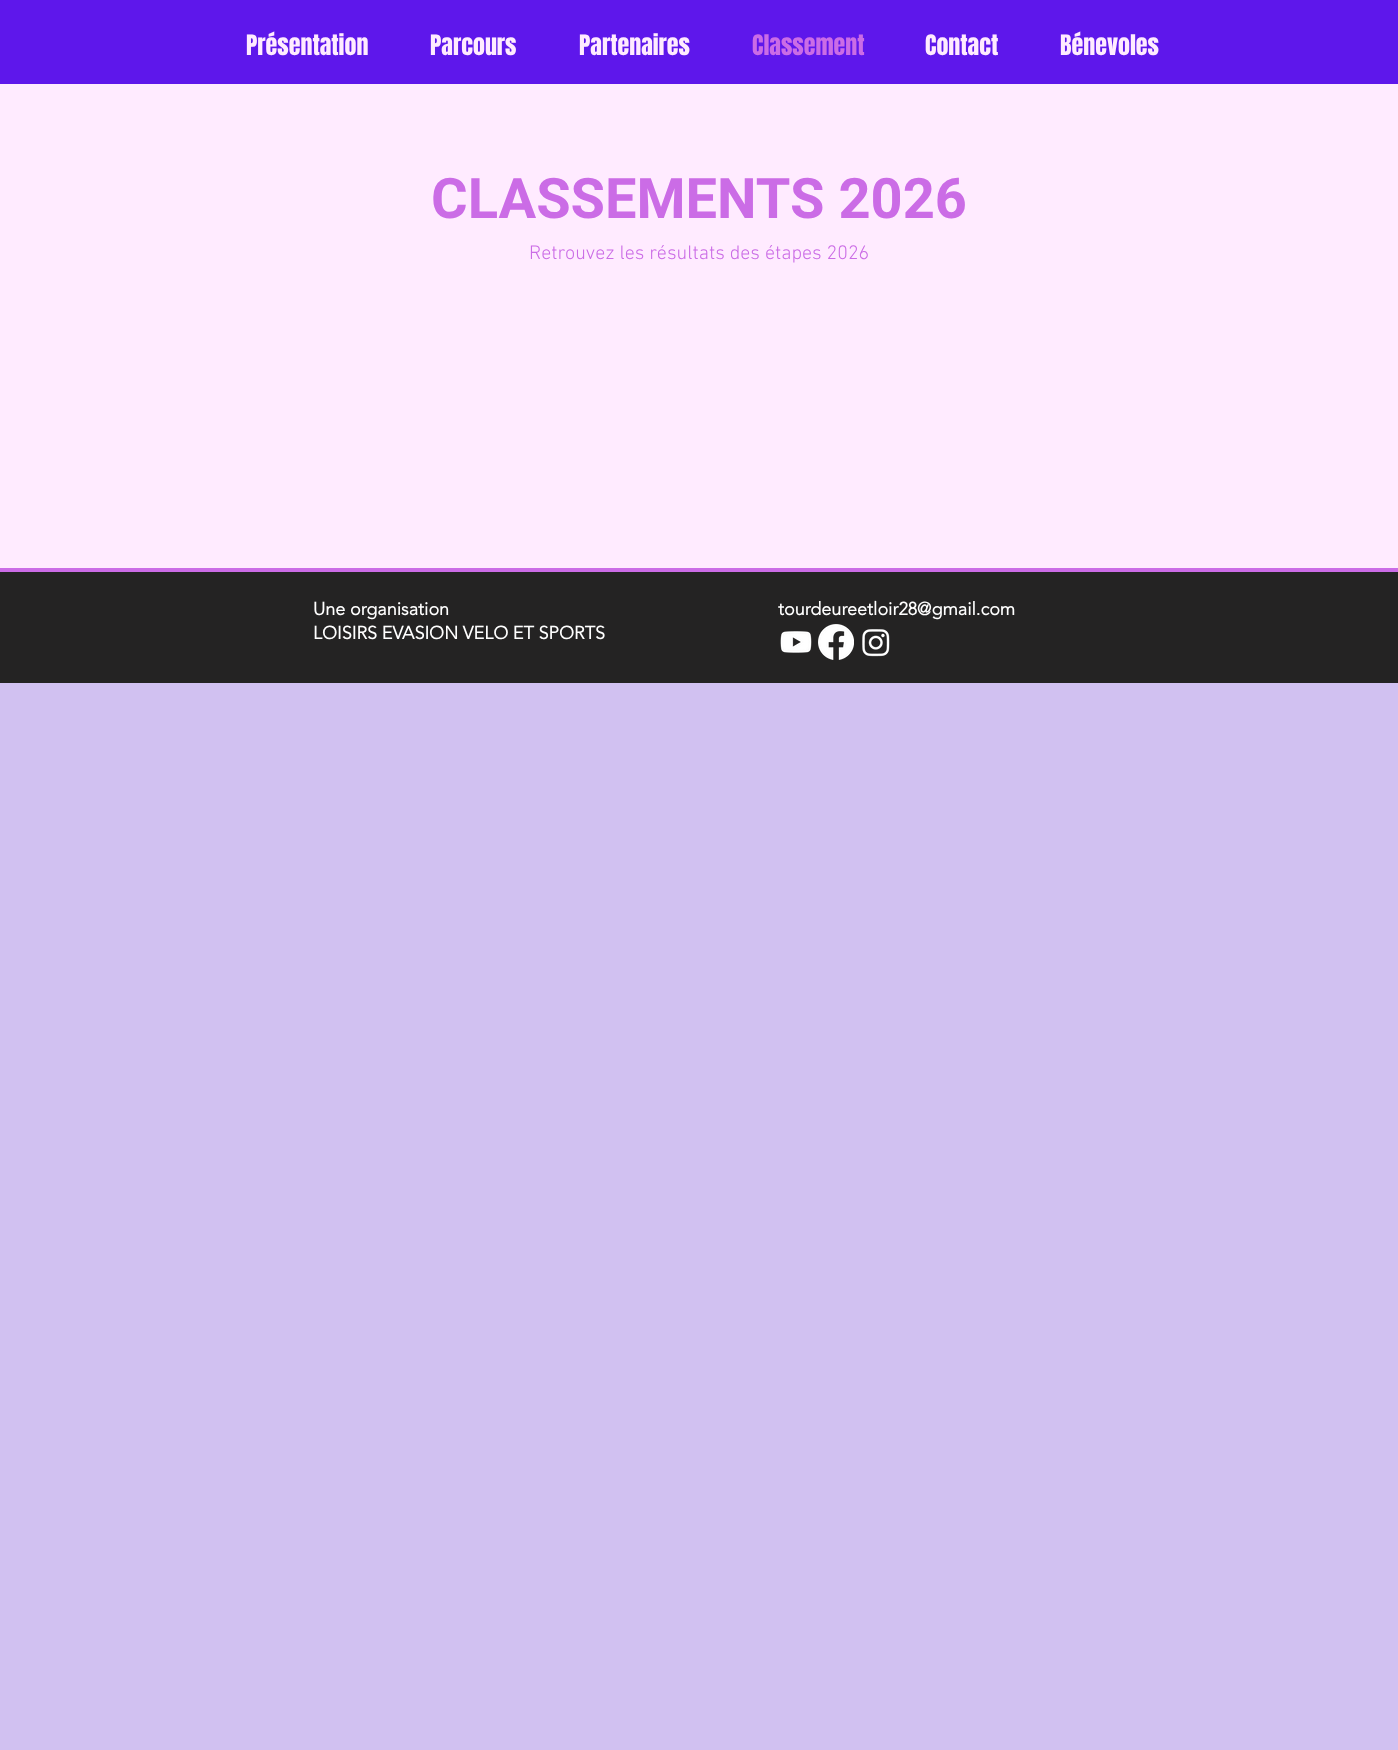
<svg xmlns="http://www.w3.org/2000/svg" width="1398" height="1750">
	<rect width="100%" height="100%" fill="#D1C1F1" />
	<rect x="0" y="0" width="1398" height="84" fill="#5E17EB" />
	<g font-family="Anton" font-size="24" fill="#FFEBFF">
		<text x="246" y="55">Présentation</text>
		<text x="430" y="55">Parcours</text>
		<text x="579" y="55">Partenaires</text>
	</g>
	<text x="752" y="55" font-family="Anton" font-size="24" fill="#CB6CE6">Classement</text>
	<g font-family="Anton" font-size="24" fill="#FFEBFF">
		<text x="925" y="55">Contact</text>
		<text x="1060" y="55">Bénevoles</text>
	</g>
	<rect x="0" y="84" width="1398" height="484" fill="#FFEBFF" />
	<text x="431" y="218" font-family="Roboto" font-size="56" font-weight="700" fill="#CB6CE6">CLASSEMENTS 2026</text>
	<text x="529" y="259" font-family="'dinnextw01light'" font-size="20" font-weight="300" fill="#CB6CE6">Retrouvez les résultats des étapes 2026</text>
	<rect x="0" y="568" width="1398" height="4" fill="#CB6CE6" />
	<rect x="0" y="572" width="1398" height="111" fill="#242323" />
	<g font-family="'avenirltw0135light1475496'" font-size="18" font-weight="700" fill="#FFFFFF">
		<text x="313" y="615">Une organisation</text>
		<text x="313" y="639">LOISIRS EVASION VELO ET SPORTS</text>
		<text x="778" y="615">tourdeureetloir28@gmail.com</text>
	</g>
	<image x="780" y="631" width="32" height="22" href="assets/img1.png" />
	<image x="818" y="624" width="36" height="36" href="assets/img2.png" />
	<image x="862" y="629" width="28" height="28" href="assets/img3.png" />
</svg>
